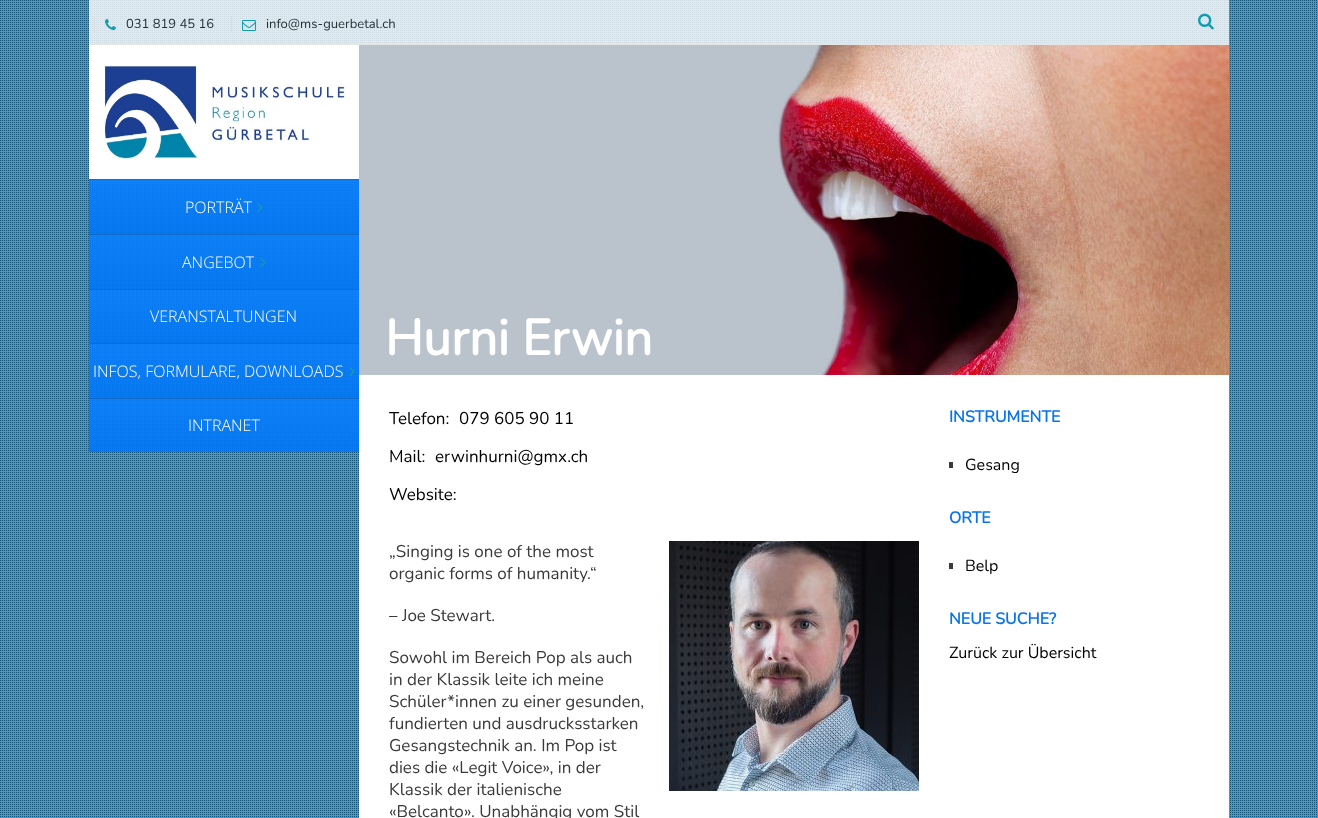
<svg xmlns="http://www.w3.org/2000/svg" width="1318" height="818">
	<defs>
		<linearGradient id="g1" gradientUnits="userSpaceOnUse" x1="224" y1="234" x2="224" y2="180"><stop offset="0" stop-color="#000000" stop-opacity="0.03" /><stop offset="1" stop-color="#FFFFFF" stop-opacity="0.03" /></linearGradient>
		<linearGradient id="g2" gradientUnits="userSpaceOnUse" x1="224" y1="235" x2="224" y2="181"><stop offset="0" stop-color="#000000" stop-opacity="0.03" /><stop offset="1" stop-color="#FFFFFF" stop-opacity="0.03" /></linearGradient>
		<linearGradient id="g3" gradientUnits="userSpaceOnUse" x1="224" y1="289" x2="224" y2="235"><stop offset="0" stop-color="#000000" stop-opacity="0.03" /><stop offset="1" stop-color="#FFFFFF" stop-opacity="0.03" /></linearGradient>
		<linearGradient id="g4" gradientUnits="userSpaceOnUse" x1="224" y1="343" x2="224" y2="290"><stop offset="0" stop-color="#000000" stop-opacity="0.03" /><stop offset="1" stop-color="#FFFFFF" stop-opacity="0.03" /></linearGradient>
		<linearGradient id="g5" gradientUnits="userSpaceOnUse" x1="224" y1="398" x2="224" y2="344"><stop offset="0" stop-color="#000000" stop-opacity="0.03" /><stop offset="1" stop-color="#FFFFFF" stop-opacity="0.03" /></linearGradient>
		<linearGradient id="g6" gradientUnits="userSpaceOnUse" x1="224" y1="399" x2="224" y2="346"><stop offset="0" stop-color="#000000" stop-opacity="0.03" /><stop offset="1" stop-color="#FFFFFF" stop-opacity="0.03" /></linearGradient>
		<linearGradient id="g7" gradientUnits="userSpaceOnUse" x1="224" y1="452" x2="224" y2="399"><stop offset="0" stop-color="#000000" stop-opacity="0.03" /><stop offset="1" stop-color="#FFFFFF" stop-opacity="0.03" /></linearGradient>
	</defs>
	<rect width="100%" height="100%" fill="#25A4ED" />
	<image x="0" y="0" width="1317" height="817" href="assets/img1.png" />
	<rect x="89" y="0" width="1140" height="44" fill="#FFFFFF" fill-opacity="0.8" />
	<rect x="89" y="44" width="1140" height="1" fill="#E4E4E4" />
	<rect x="94" y="16" width="1" height="16" fill="#DDDDDD" />
	<image x="105" y="19" width="11" height="11" href="assets/img2.png" />
	<text x="126" y="28" font-family="Nunito" font-size="13" font-weight="200" fill="#253135">031 819 45 16</text>
	<rect x="231" y="16" width="1" height="16" fill="#DDDDDD" />
	<image x="242" y="20" width="14" height="11" href="assets/img3.png" />
	<text x="266" y="28" font-family="Nunito" font-size="13" font-weight="200" fill="#253135">info@ms-guerbetal.ch</text>
	<image x="1198" y="13" width="16" height="17" href="assets/img4.png" />
	<rect x="89" y="45" width="270" height="134" fill="#FFFFFF" />
	<image x="104" y="65" width="242" height="95" href="assets/img5.png" />
	<rect x="89" y="180" width="270" height="54" fill="#007AFF" fill-opacity="0.9" />
	<rect x="89" y="180" width="270" height="54" fill="url(#g1)" />
	<rect x="89" y="179" width="270" height="1" fill="#0E6DD0" />
	<text x="185" y="213" font-family="Open Sans" font-size="16" font-weight="300" fill="#FFFFFF">PORTRÄT</text>
	<image x="257" y="203" width="6" height="10" href="assets/img6.png" />
	<rect x="89" y="234" width="270" height="55" fill="#007AFF" fill-opacity="0.9" />
	<rect x="89" y="234" width="270" height="1" fill="url(#g2)" />
	<rect x="89" y="235" width="270" height="54" fill="url(#g3)" />
	<rect x="89" y="234" width="270" height="1" fill="#383838" fill-opacity="0.2" />
	<text x="182" y="268" font-family="Open Sans" font-size="16" font-weight="300" fill="#FFFFFF">ANGEBOT</text>
	<image x="260" y="258" width="6" height="10" href="assets/img7.png" />
	<rect x="89" y="290" width="270" height="53" fill="#007AFF" fill-opacity="0.9" />
	<rect x="89" y="290" width="270" height="53" fill="url(#g4)" />
	<rect x="89" y="289" width="270" height="1" fill="#0E6DD0" />
	<text x="150" y="322" font-family="Open Sans" font-size="16" font-weight="300" fill="#FFFFFF">VERANSTALTUNGEN</text>
	<rect x="89" y="344" width="270" height="54" fill="#007AFF" fill-opacity="0.9" />
	<rect x="89" y="344" width="270" height="54" fill="url(#g5)" />
	<rect x="89" y="343" width="270" height="1" fill="#0E6DD0" />
	<text x="93" y="377" font-family="Open Sans" font-size="16" font-weight="300" fill="#FFFFFF">INFOS, FORMULARE, DOWNLOADS</text>
	<image x="349" y="367" width="6" height="10" href="assets/img6.png" />
	<rect x="89" y="398" width="270" height="54" fill="#007AFF" fill-opacity="0.9" />
	<rect x="89" y="398" width="270" height="1" fill="url(#g6)" />
	<rect x="89" y="399" width="270" height="53" fill="url(#g7)" />
	<rect x="89" y="398" width="270" height="1" fill="#383838" fill-opacity="0.2" />
	<text x="188" y="431" font-family="Open Sans" font-size="16" font-weight="300" fill="#FFFFFF">INTRANET</text>
	<image x="359" y="45" width="870" height="330" href="assets/img8.png" />
	<text x="385" y="355" font-family="Nunito" font-size="50" font-weight="700" fill="#FFFFFF">Hurni Erwin</text>
	<rect x="359" y="375" width="870" height="443" fill="#FFFFFF" />
	<g font-family="Nunito" font-size="17" font-weight="200" fill="#000000">
		<text x="389" y="424">Telefon:</text>
		<text x="459" y="424">079 605 90 11</text>
		<text x="389" y="462">Mail:</text>
		<text x="435" y="462">erwinhurni@gmx.ch</text>
		<text x="389" y="500">Website:</text>
	</g>
	<g font-family="Nunito" font-size="17" font-weight="200" fill="#3A3A3A">
		<text x="389" y="557">„Singing is one of the most</text>
		<text x="389" y="579">organic forms of humanity.“</text>
	</g>
	<image x="669" y="541" width="250" height="250" href="assets/img9.png" />
	<g font-family="Nunito" font-size="17" font-weight="200" fill="#3A3A3A">
		<text x="389" y="621">– Joe Stewart.</text>
		<text x="389" y="663">Sowohl im Bereich Pop als auch</text>
		<text x="389" y="685">in der Klassik leite ich meine</text>
		<text x="389" y="707">Schüler*innen zu einer gesunden,</text>
		<text x="389" y="729">fundierten und ausdrucksstarken</text>
		<text x="389" y="751">Gesangstechnik an. Im Pop ist</text>
		<text x="389" y="773">dies die «Legit Voice», in der</text>
		<text x="389" y="795">Klassik der italienische</text>
		<text x="389" y="817">«Belcanto». Unabhängig vom Stil</text>
	</g>
	<text x="949" y="422" font-family="Nunito" font-size="16" font-weight="700" fill="#0A74E9">INSTRUMENTE</text>
	<rect x="949" y="462" width="4" height="6" fill="#3A3A3A" />
	<text x="965" y="470" font-family="Nunito" font-size="16" font-weight="200" fill="#000000">Gesang</text>
	<text x="949" y="523" font-family="Nunito" font-size="16" font-weight="700" fill="#0A74E9">ORTE</text>
	<rect x="949" y="563" width="4" height="6" fill="#3A3A3A" />
	<text x="965" y="571" font-family="Nunito" font-size="16" font-weight="200" fill="#000000">Belp</text>
	<text x="949" y="624" font-family="Nunito" font-size="16" font-weight="700" fill="#0A74E9">NEUE SUCHE?</text>
	<text x="949" y="658" font-family="Nunito" font-size="16" font-weight="200" fill="#000000">Zurück zur Übersicht</text>
</svg>
